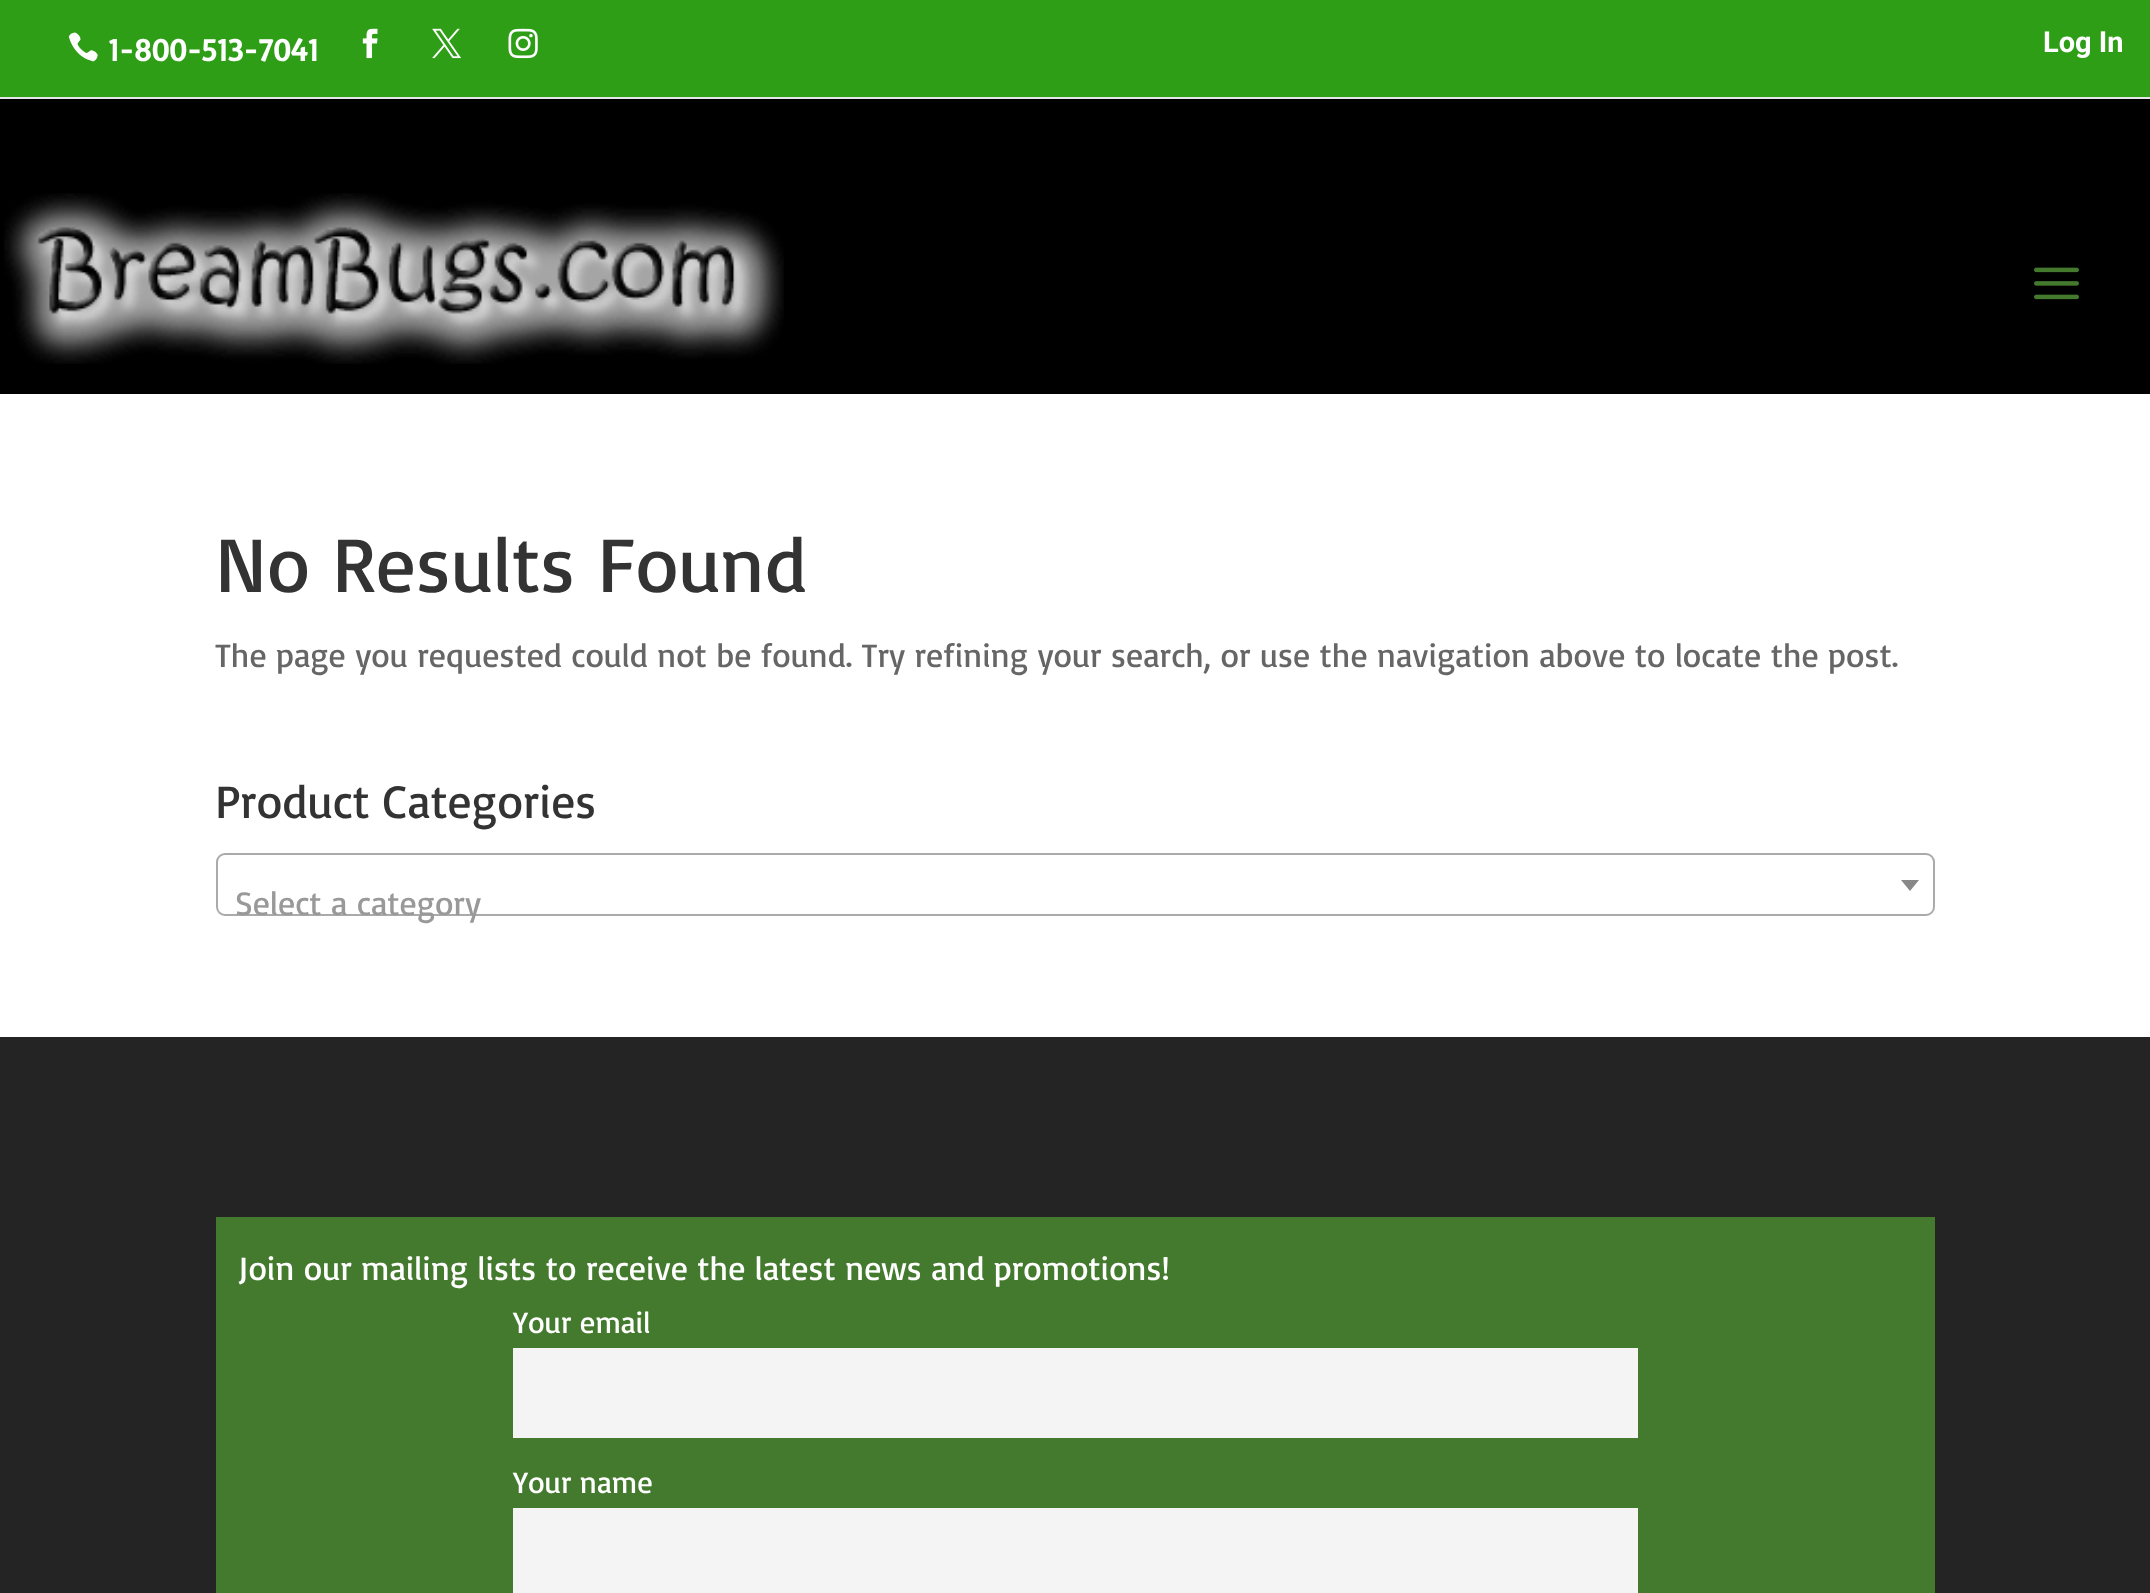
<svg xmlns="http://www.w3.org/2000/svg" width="2150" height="1593">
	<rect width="100%" height="100%" fill="#FFFFFF" />
	<rect x="0" y="0" width="2150" height="97" fill="#2E9E17" />
	<rect x="0" y="97" width="2150" height="2" fill="#E6E6E6" />
	<image x="68" y="32" width="30" height="30" href="assets/img1.png" />
	<text x="108" y="61" font-family="Basic" font-size="31.5" font-weight="700" fill="#FFFFFF">1-800-513-7041</text>
	<image x="362" y="28" width="16" height="31" href="assets/img2.png" />
	<image x="432" y="28" width="29" height="31" href="assets/img3.png" />
	<image x="508" y="28" width="30" height="31" href="assets/img4.png" />
	<text x="2043" y="52" font-family="Roboto" font-size="29" font-weight="700" fill="#FFFFFF">Log In</text>
	<rect x="0" y="99" width="2150" height="295" fill="#000000" />
	<image x="4" y="193" width="780" height="171" href="assets/img5.png" />
	<image x="2034" y="267" width="45" height="33" href="assets/img6.png" />
	<text x="215" y="592" font-family="Basic" font-size="78.75" fill="#333333">No Results Found</text>
	<text x="215" y="667" font-family="Basic" font-size="33.75" fill="#666666">The page you requested could not be found. Try refining your search, or use the navigation above to locate the post.</text>
	<text x="215" y="818" font-family="Basic" font-size="47.25" fill="#333333">Product Categories</text>
	<rect x="217" y="854" width="1717" height="61" rx="8" fill="none" stroke="#AAAAAA" stroke-width="2" />
	<path d="M1901 880H1919L1910 891Z" fill="#888888" />
	<text x="235" y="915" font-family="Basic" font-size="33.75" fill="#999999">Select a category</text>
	<rect x="0" y="1037" width="2150" height="556" fill="#242424" />
	<rect x="216" y="1217" width="1719" height="376" fill="#447A2E" />
	<text x="238" y="1280" font-family="Basic" font-size="33.75" fill="#FFFFFF">Join our mailing lists to receive the latest news and promotions!</text>
	<text x="513" y="1333" font-family="Basic" font-size="30.5" fill="#FFFFFF">Your email</text>
	<rect x="513" y="1348" width="1125" height="90" fill="#F4F4F4" />
	<text x="513" y="1493" font-family="Basic" font-size="30.5" fill="#FFFFFF">Your name</text>
	<rect x="513" y="1508" width="1125" height="85" fill="#F4F4F4" />
</svg>
